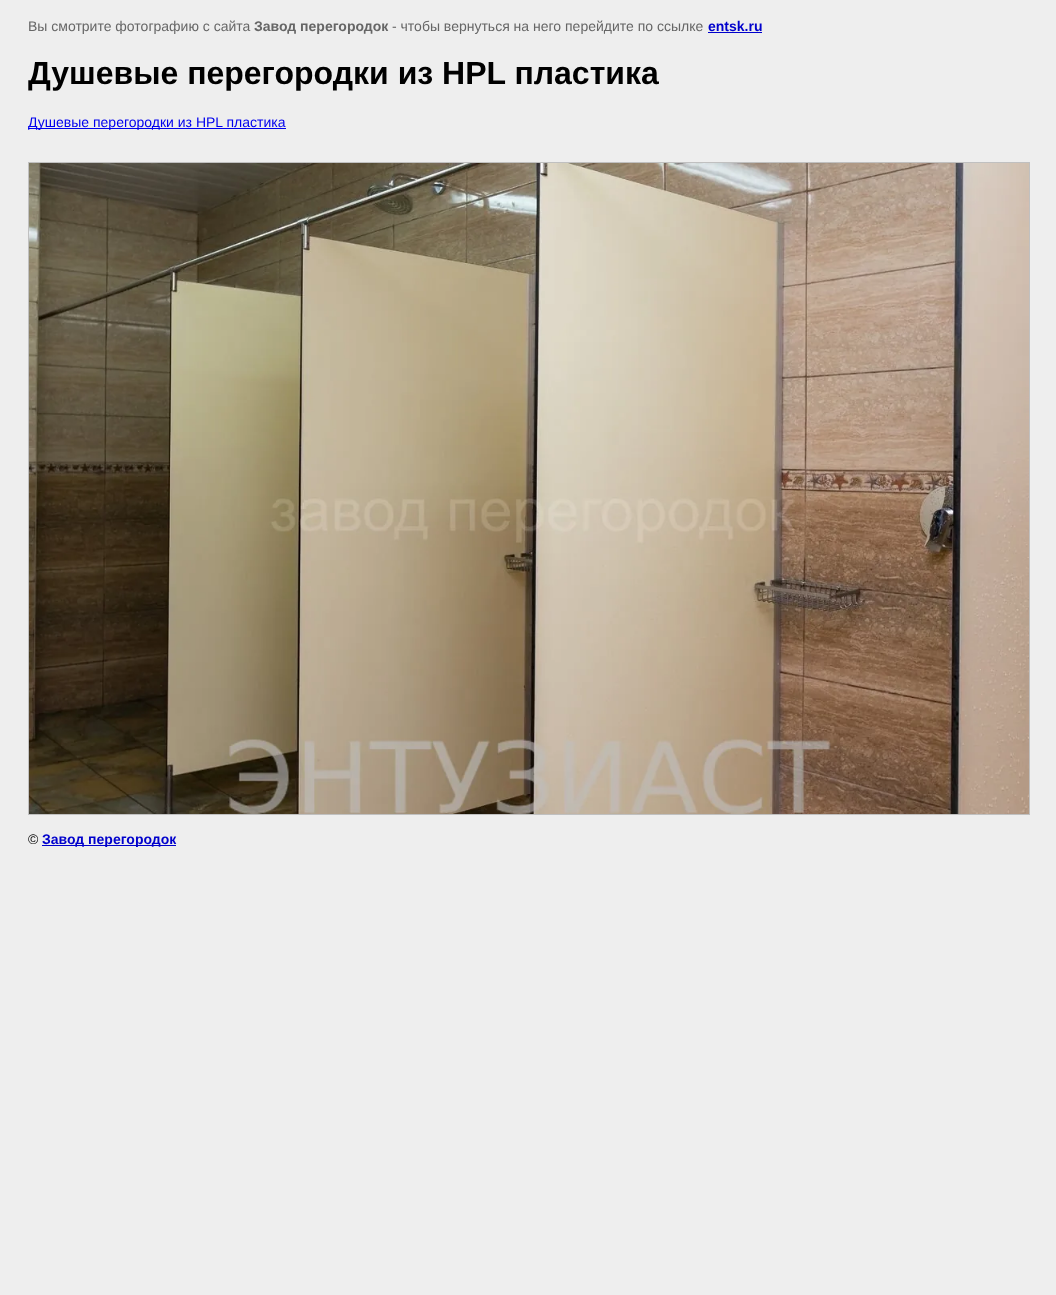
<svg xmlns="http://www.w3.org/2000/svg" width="1056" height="1295">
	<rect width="100%" height="100%" fill="#EEEEEE" />
	<text x="28" y="31" font-family="Liberation Sans" font-size="14" fill="#666666">Вы смотрите фотографию с сайта</text>
	<text x="254" y="31" font-family="Liberation Sans" font-size="14" font-weight="700" fill="#666666">Завод перегородок</text>
	<text x="392" y="31" font-family="Liberation Sans" font-size="14" fill="#666666">- чтобы вернуться на него перейдите по ссылке</text>
	<text x="708" y="31" font-family="Liberation Sans" font-size="14" font-weight="700" fill="#0000CC">entsk.ru</text>
	<rect x="708" y="32" width="54" height="1" fill="#0000CC" />
	<text x="28" y="84" font-family="Liberation Sans" font-size="32" font-weight="700" fill="#000000">Душевые перегородки из HPL пластика</text>
	<rect x="28" y="128" width="258" height="1" fill="#0000EE" />
	<text x="28" y="127" font-family="Liberation Sans" font-size="14" fill="#0000EE">Душевые перегородки из HPL пластика</text>
	<rect x="28.5" y="162.5" width="1001" height="652" fill="none" stroke="#C0C0C0" />
	<image x="29" y="163" width="1000" height="651" href="assets/img1.png" />
	<text x="28" y="844" font-family="Liberation Sans" font-size="14" fill="#000000">©</text>
	<rect x="42" y="845" width="134" height="1" fill="#0000CC" />
	<text x="42" y="844" font-family="Liberation Sans" font-size="14" font-weight="700" fill="#0000CC">Завод перегородок</text>
</svg>
